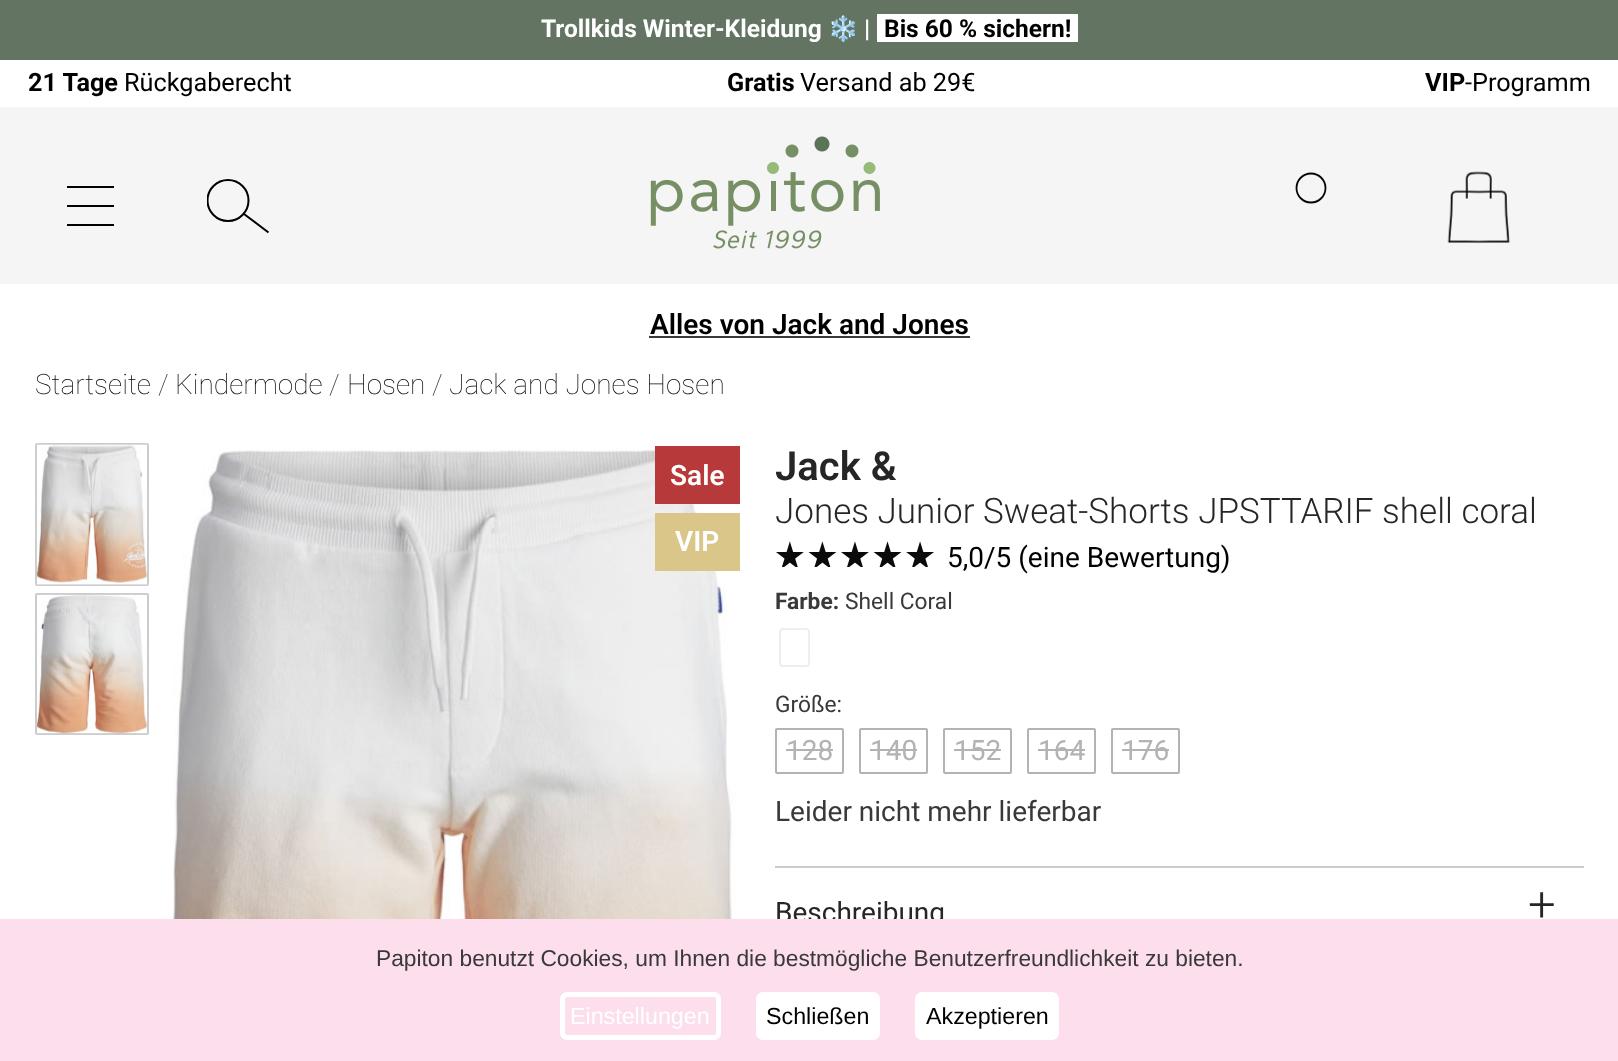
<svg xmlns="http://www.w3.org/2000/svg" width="1618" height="1061">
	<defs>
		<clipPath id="clip1"><rect x="207" y="179" width="63" height="56" /></clipPath>
	</defs>
	<rect width="100%" height="100%" fill="#FFFFFF" />
	<rect x="0" y="0" width="1618" height="60" fill="#647463" />
	<text x="541" y="37" font-family="Roboto" font-size="24.5" font-weight="700" fill="#FFFFFF">Trollkids Winter-Kleidung</text>
	<text x="828" y="37" font-family="Noto Color Emoji" font-size="24.5" font-weight="700" fill="#FFFFFF">❄️</text>
	<text x="864" y="37" font-family="Roboto" font-size="24.5" font-weight="700" fill="#FFFFFF">|</text>
	<rect x="877" y="14" width="201" height="28" fill="#FFFFFF" />
	<text x="884" y="37" font-family="Roboto" font-size="24.5" font-weight="700" fill="#000000">Bis 60 % sichern!</text>
	<text x="28" y="91" font-family="Roboto" font-size="25.25" font-weight="700" fill="#000000">21 Tage</text>
	<text x="124" y="91" font-family="Roboto" font-size="25.25" fill="#000000">Rückgaberecht</text>
	<text x="727" y="91" font-family="Roboto" font-size="25.25" font-weight="700" fill="#000000">Gratis</text>
	<text x="800" y="91" font-family="Roboto" font-size="25.25" fill="#000000">Versand ab 29€</text>
	<text x="1425" y="91" font-family="Roboto" font-size="25.25" font-weight="700" fill="#000000">VIP</text>
	<text x="1465" y="91" font-family="Roboto" font-size="25.25" fill="#000000">-Programm</text>
	<rect x="0" y="107" width="1618" height="177" fill="#F5F5F5" />
	<rect x="67" y="186" width="47" height="2" fill="#000000" />
	<rect x="67" y="205" width="47" height="2" fill="#000000" />
	<rect x="67" y="224" width="47" height="2" fill="#000000" />
	<g clip-path="url(#clip1)">
		<circle cx="228" cy="200.5" r="20.5" fill="none" stroke="#000000" stroke-width="2" />
	</g>
	<path d="M268.5 232.5L244 214" fill="none" stroke="#000000" stroke-width="2" />
	<image x="650" y="136" width="230" height="113" href="assets/img1.png" />
	<circle cx="1311" cy="188" r="14.5" fill="none" stroke="#050505" stroke-width="1.8" />
	<image x="1447" y="171" width="63" height="73" href="assets/img2.png" />
	<text x="650" y="334" font-family="Roboto" font-size="28" font-weight="600" fill="#000000">Alles von Jack and Jones</text>
	<rect x="649" y="336" width="321" height="2" fill="#393939" />
	<text x="35" y="394" font-family="Roboto" font-size="28" font-weight="100" fill="#000000">Startseite</text>
	<text x="158" y="394" font-family="Roboto" font-size="28" font-weight="100" fill="#393939">/</text>
	<text x="175" y="394" font-family="Roboto" font-size="28" font-weight="100" fill="#000000">Kindermode</text>
	<text x="329" y="394" font-family="Roboto" font-size="28" font-weight="100" fill="#393939">/</text>
	<text x="347" y="394" font-family="Roboto" font-size="28" font-weight="100" fill="#000000">Hosen</text>
	<text x="432" y="394" font-family="Roboto" font-size="28" font-weight="100" fill="#393939">/</text>
	<text x="449" y="394" font-family="Roboto" font-size="28" font-weight="100" fill="#000000">Jack and Jones Hosen</text>
	<rect x="36" y="444" width="112" height="141" rx="1" fill="none" stroke="#CCCCCC" stroke-width="2" />
	<image x="36" y="444" width="111" height="141" href="assets/img3.png" />
	<rect x="36" y="594" width="112" height="140" rx="1" fill="none" stroke="#CCCCCC" stroke-width="2" />
	<image x="37" y="594" width="110" height="140" href="assets/img4.png" />
	<image x="163" y="449" width="583" height="470" href="assets/img5.png" />
	<rect x="655" y="446" width="85" height="58" fill="#B73939" />
	<text x="670" y="485" font-family="Roboto" font-size="28" font-weight="600" fill="#FFFFFF">Sale</text>
	<rect x="655" y="513" width="85" height="58" fill="#DAC689" />
	<text x="675" y="551" font-family="Roboto" font-size="28" font-weight="600" fill="#FFFFFF">VIP</text>
	<text x="775" y="480" font-family="Roboto" font-size="40" font-weight="600" fill="#262626">Jack &amp;</text>
	<text x="775" y="523" font-family="Roboto" font-size="35" font-weight="300" fill="#262626">Jones Junior Sweat-Shorts JPSTTARIF shell coral</text>
	<image x="776" y="541" width="158" height="26" href="assets/img6.png" />
	<text x="947" y="567" font-family="Roboto" font-size="28" fill="#000000">5,0/5 (eine Bewertung)</text>
	<text x="775" y="609" font-family="Roboto" font-size="22.75" font-weight="700" fill="#393939">Farbe:</text>
	<text x="845" y="609" font-family="Roboto" font-size="22.75" fill="#393939">Shell Coral</text>
	<rect x="780" y="629" width="29" height="37" rx="3" fill="none" stroke="#EEEEEE" stroke-width="2" />
	<text x="775" y="712" font-family="Roboto" font-size="22.75" fill="#393939">Größe:</text>
	<rect x="776" y="729" width="67" height="44" rx="1" fill="none" stroke="#B3B3B3" stroke-width="2" />
	<text x="786" y="760" font-family="Roboto" font-size="28" fill="#B3B3B3">128</text>
	<rect x="786" y="749" width="47" height="2" fill="#B3B3B3" />
	<rect x="860" y="729" width="67" height="44" rx="1" fill="none" stroke="#B3B3B3" stroke-width="2" />
	<text x="870" y="760" font-family="Roboto" font-size="28" fill="#B3B3B3">140</text>
	<rect x="870" y="749" width="47" height="2" fill="#B3B3B3" />
	<rect x="944" y="729" width="67" height="44" rx="1" fill="none" stroke="#B3B3B3" stroke-width="2" />
	<text x="954" y="760" font-family="Roboto" font-size="28" fill="#B3B3B3">152</text>
	<rect x="954" y="749" width="47" height="2" fill="#B3B3B3" />
	<rect x="1028" y="729" width="67" height="44" rx="1" fill="none" stroke="#B3B3B3" stroke-width="2" />
	<text x="1038" y="760" font-family="Roboto" font-size="28" fill="#B3B3B3">164</text>
	<rect x="1038" y="749" width="47" height="2" fill="#B3B3B3" />
	<rect x="1112" y="729" width="67" height="44" rx="1" fill="none" stroke="#B3B3B3" stroke-width="2" />
	<text x="1122" y="760" font-family="Roboto" font-size="28" fill="#B3B3B3">176</text>
	<rect x="1122" y="749" width="47" height="2" fill="#B3B3B3" />
	<text x="775" y="821" font-family="Roboto" font-size="28" fill="#393939">Leider nicht mehr lieferbar</text>
	<rect x="775" y="866" width="809" height="2" fill="#CCCCCC" />
	<text x="775" y="922" font-family="Roboto" font-size="28" fill="#262626">Beschreibung</text>
	<text x="1528" y="921" font-family="Roboto" font-size="49" font-weight="300" fill="#262626">+</text>
	<rect x="0" y="919" width="1618" height="142" fill="#FDDEED" />
	<text x="376" y="966" font-family="Liberation Sans" font-size="22.75" fill="#393939">Papiton benutzt Cookies, um Ihnen die bestmögliche Benutzerfreundlichkeit zu bieten.</text>
	<rect x="562.5" y="994.5" width="156" height="43" rx="4.5" fill="none" stroke="#FFFFFF" stroke-width="5" />
	<text x="570" y="1024" font-family="Liberation Sans" font-size="23.25" fill="#FFFFFF">Einstellungen</text>
	<rect x="758.5" y="994.5" width="119" height="43" rx="4.5" fill="#FFFFFF" stroke="#FFFFFF" stroke-width="5" />
	<text x="766" y="1024" font-family="Liberation Sans" font-size="23.25" fill="#000000">Schließen</text>
	<rect x="917.5" y="994.5" width="139" height="43" rx="4.5" fill="#FFFFFF" stroke="#FFFFFF" stroke-width="5" />
	<text x="926" y="1024" font-family="Liberation Sans" font-size="23.25" fill="#000000">Akzeptieren</text>
</svg>
